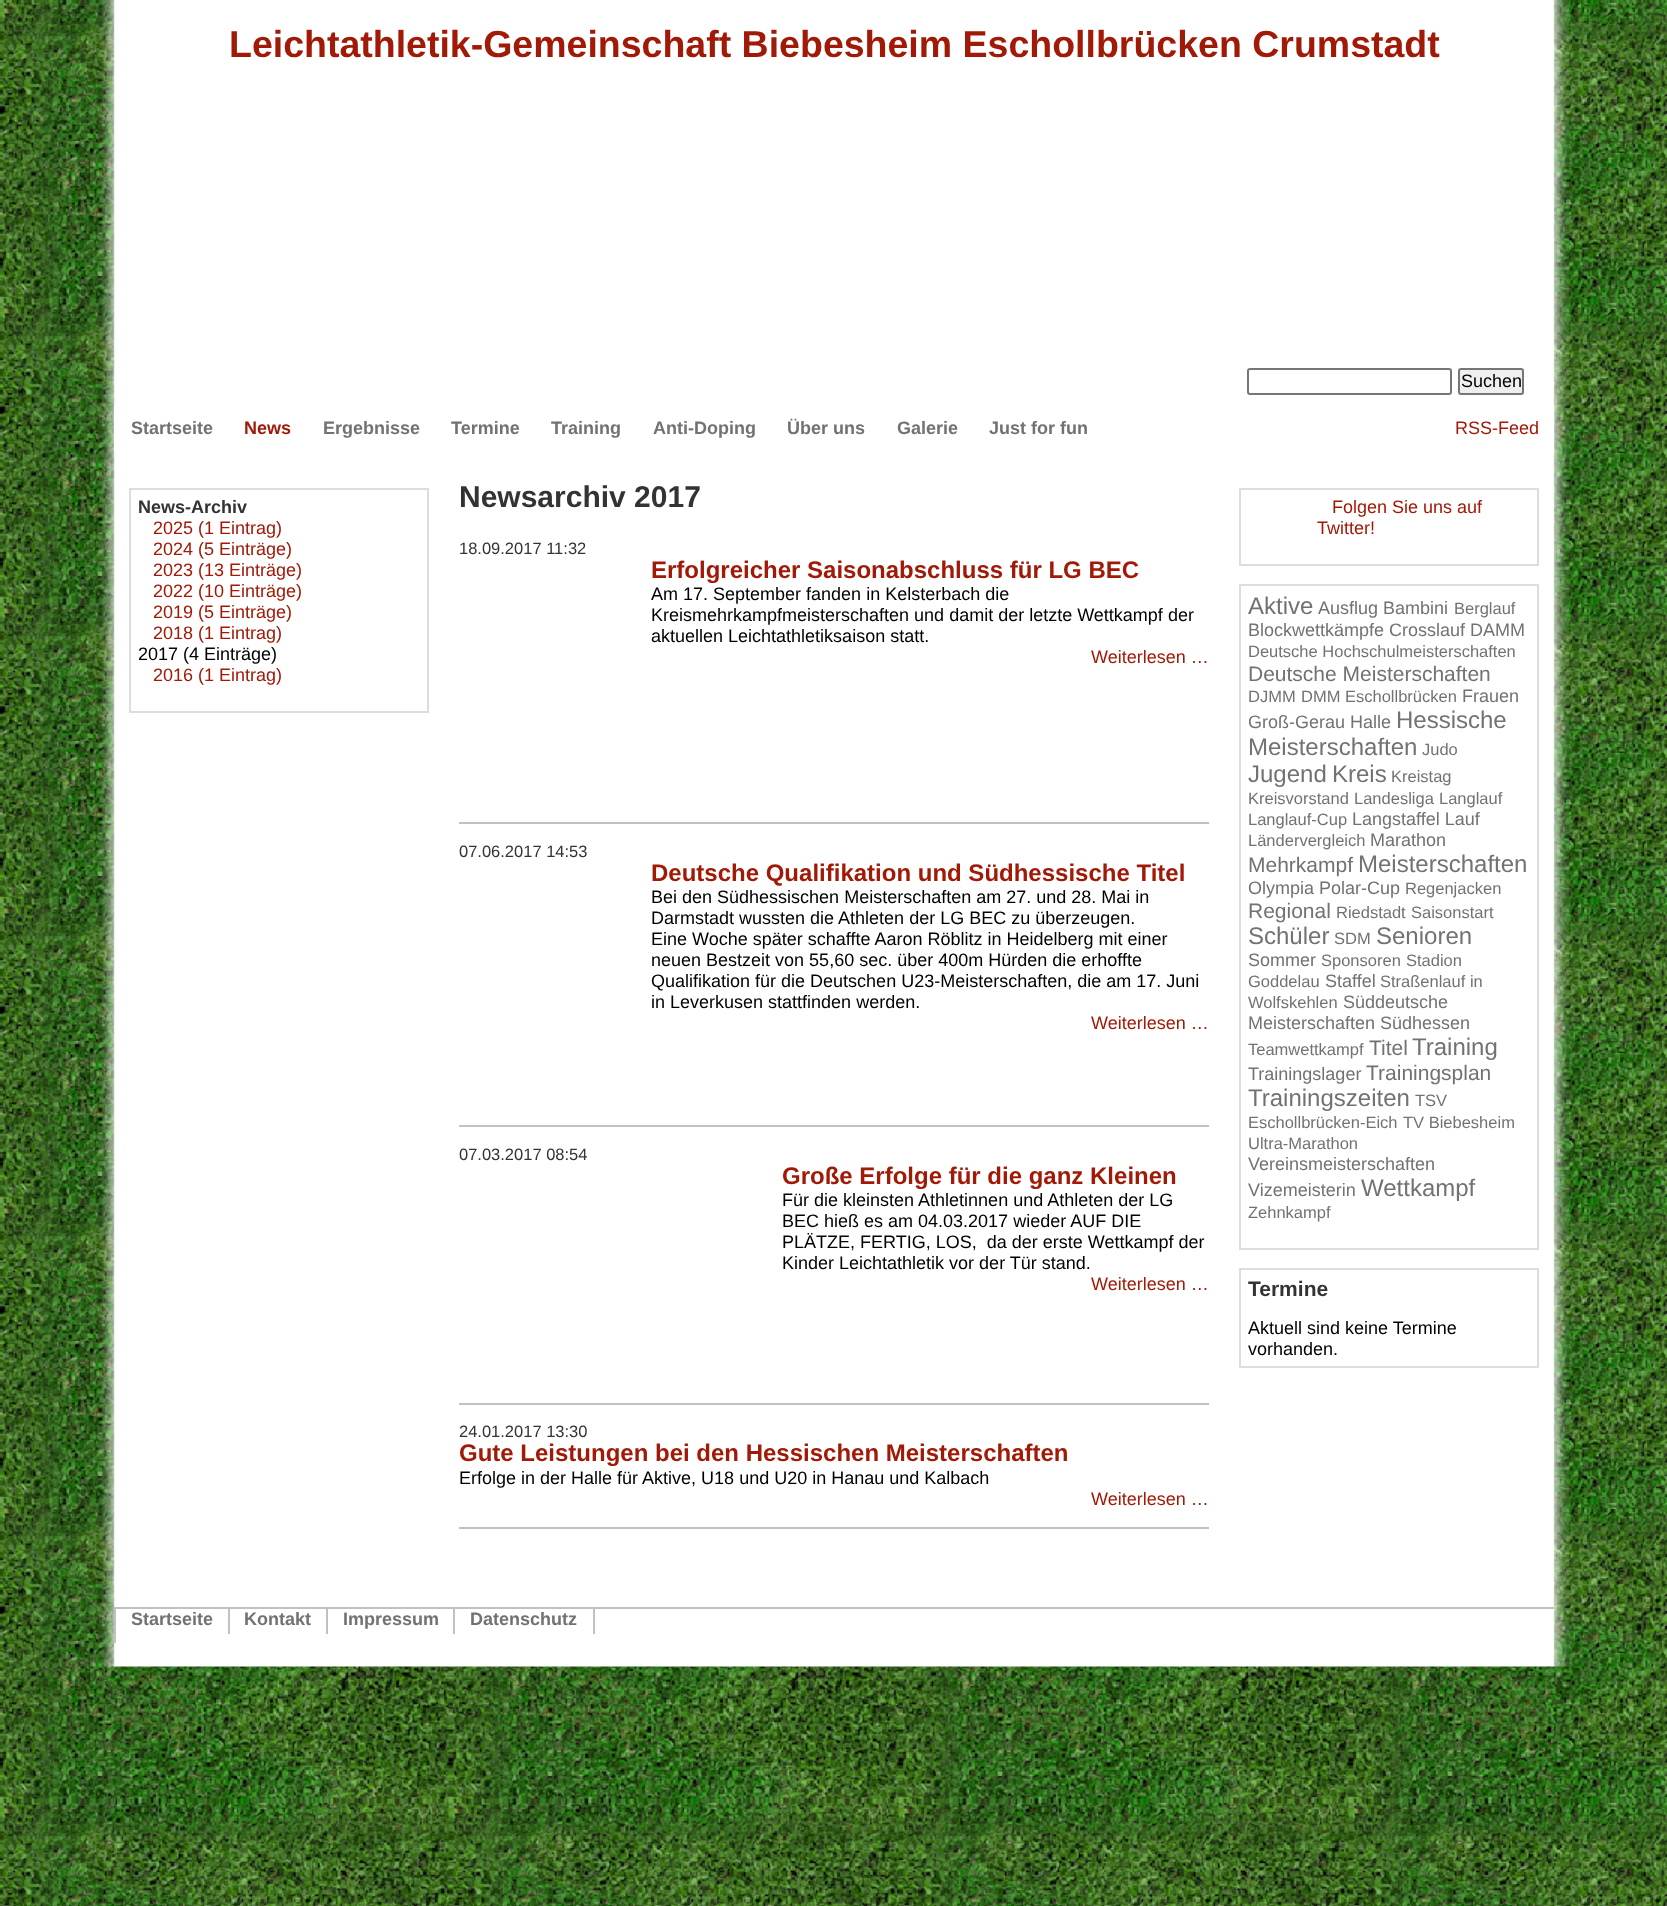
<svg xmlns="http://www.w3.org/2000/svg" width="1667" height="1906">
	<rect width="100%" height="100%" fill="#FFFFFF" />
	<image x="0" y="0" width="1667" height="1906" href="assets/img1.png" />
	<image x="99" y="0" width="1470" height="1667" href="assets/img2.png" />
	<text x="229" y="57" font-family="Liberation Sans" font-size="37.5" font-weight="700" fill="#A11A07">Leichtathletik-Gemeinschaft Biebesheim Eschollbrücken Crumstadt</text>
	<rect x="1248" y="369" width="203" height="25" rx="2" fill="none" stroke="#767676" stroke-width="2" />
	<rect x="1459" y="369" width="64" height="25" rx="2" fill="#EFEFEF" stroke="#767676" stroke-width="2" />
	<text x="1461" y="387" font-family="Liberation Sans" font-size="18" fill="#000000">Suchen</text>
	<rect x="114" y="405" width="1440" height="48" fill="#FFFFFF" />
	<text x="131" y="434" font-family="Liberation Sans" font-size="18" font-weight="700" fill="#727272">Startseite</text>
	<text x="244" y="434" font-family="Liberation Sans" font-size="18" font-weight="700" fill="#A11A07">News</text>
	<g font-family="Liberation Sans" font-size="18" font-weight="700" fill="#727272">
		<text x="323" y="434">Ergebnisse</text>
		<text x="451" y="434">Termine</text>
		<text x="551" y="434">Training</text>
		<text x="653" y="434">Anti-Doping</text>
		<text x="787" y="434">Über uns</text>
		<text x="897" y="434">Galerie</text>
		<text x="989" y="434">Just for fun</text>
	</g>
	<text x="1455" y="434" font-family="Liberation Sans" font-size="18" fill="#A11A07">RSS-Feed</text>
	<rect x="130" y="489" width="298" height="223" fill="none" stroke="#DDDDDD" stroke-width="2" />
	<text x="138" y="513" font-family="Liberation Sans" font-size="18" font-weight="700" fill="#333333">News-Archiv</text>
	<g font-family="Liberation Sans" font-size="18" fill="#A11A07">
		<text x="153" y="534">2025 (1 Eintrag)</text>
		<text x="153" y="555">2024 (5 Einträge)</text>
		<text x="153" y="576">2023 (13 Einträge)</text>
		<text x="153" y="597">2022 (10 Einträge)</text>
		<text x="153" y="618">2019 (5 Einträge)</text>
		<text x="153" y="639">2018 (1 Eintrag)</text>
	</g>
	<text x="138" y="660" font-family="Liberation Sans" font-size="18" fill="#000000">2017 (4 Einträge)</text>
	<text x="153" y="681" font-family="Liberation Sans" font-size="18" fill="#A11A07">2016 (1 Eintrag)</text>
	<text x="459" y="507" font-family="Liberation Sans" font-size="30" font-weight="700" fill="#333333">Newsarchiv 2017</text>
	<rect x="459" y="822" width="750" height="2" fill="#C1C1C1" />
	<text x="459" y="554" font-family="Liberation Sans" font-size="16.5" fill="#333333">18.09.2017 11:32</text>
	<text x="651" y="578" font-family="Liberation Sans" font-size="24" font-weight="700" fill="#A11A07">Erfolgreicher Saisonabschluss für LG BEC</text>
	<g font-family="Liberation Sans" font-size="18" fill="#000000">
		<text x="651" y="600">Am 17. September fanden in Kelsterbach die</text>
		<text x="651" y="621">Kreismehrkampfmeisterschaften und damit der letzte Wettkampf der</text>
		<text x="651" y="642">aktuellen Leichtathletiksaison statt.</text>
	</g>
	<text x="1091" y="663" font-family="Liberation Sans" font-size="18" fill="#A11A07">Weiterlesen …</text>
	<rect x="459" y="1125" width="750" height="2" fill="#C1C1C1" />
	<text x="459" y="857" font-family="Liberation Sans" font-size="16.5" fill="#333333">07.06.2017 14:53</text>
	<text x="651" y="881" font-family="Liberation Sans" font-size="24" font-weight="700" fill="#A11A07">Deutsche Qualifikation und Südhessische Titel</text>
	<g font-family="Liberation Sans" font-size="18" fill="#000000">
		<text x="651" y="903">Bei den Südhessischen Meisterschaften am 27. und 28. Mai in</text>
		<text x="651" y="924">Darmstadt wussten die Athleten der LG BEC zu überzeugen.</text>
		<text x="651" y="945">Eine Woche später schaffte Aaron Röblitz in Heidelberg mit einer</text>
		<text x="651" y="966">neuen Bestzeit von 55,60 sec. über 400m Hürden die erhoffte</text>
		<text x="651" y="987">Qualifikation für die Deutschen U23-Meisterschaften, die am 17. Juni</text>
		<text x="651" y="1008">in Leverkusen stattfinden werden.</text>
	</g>
	<text x="1091" y="1029" font-family="Liberation Sans" font-size="18" fill="#A11A07">Weiterlesen …</text>
	<rect x="459" y="1403" width="750" height="2" fill="#C1C1C1" />
	<text x="459" y="1160" font-family="Liberation Sans" font-size="16.5" fill="#333333">07.03.2017 08:54</text>
	<text x="782" y="1184" font-family="Liberation Sans" font-size="24" font-weight="700" fill="#A11A07">Große Erfolge für die ganz Kleinen</text>
	<g font-family="Liberation Sans" font-size="18" fill="#000000">
		<text x="782" y="1206">Für die kleinsten Athletinnen und Athleten der LG</text>
		<text x="782" y="1227">BEC hieß es am 04.03.2017 wieder AUF DIE</text>
		<text x="782" y="1248" xml:space="preserve">PLÄTZE, FERTIG, LOS,  da der erste Wettkampf der</text>
		<text x="782" y="1269">Kinder Leichtathletik vor der Tür stand.</text>
	</g>
	<text x="1091" y="1290" font-family="Liberation Sans" font-size="18" fill="#A11A07">Weiterlesen …</text>
	<rect x="459" y="1527" width="750" height="2" fill="#C1C1C1" />
	<text x="459" y="1437" font-family="Liberation Sans" font-size="16.5" fill="#333333">24.01.2017 13:30</text>
	<text x="459" y="1461" font-family="Liberation Sans" font-size="24" font-weight="700" fill="#A11A07">Gute Leistungen bei den Hessischen Meisterschaften</text>
	<text x="459" y="1484" font-family="Liberation Sans" font-size="18" fill="#000000">Erfolge in der Halle für Aktive, U18 und U20 in Hanau und Kalbach</text>
	<text x="1091" y="1505" font-family="Liberation Sans" font-size="18" fill="#A11A07">Weiterlesen …</text>
	<rect x="1240" y="489" width="298" height="76" fill="none" stroke="#DDDDDD" stroke-width="2" />
	<g font-family="Liberation Sans" font-size="18" fill="#A11A07">
		<text x="1332" y="513">Folgen Sie uns auf</text>
		<text x="1317" y="534">Twitter!</text>
	</g>
	<rect x="1240" y="585" width="298" height="664" fill="none" stroke="#DDDDDD" stroke-width="2" />
	<text x="1248" y="614" font-family="Liberation Sans" font-size="24" fill="#727272">Aktive</text>
	<text x="1318" y="614" font-family="Liberation Sans" font-size="18" fill="#727272">Ausflug Bambini</text>
	<text x="1454" y="614" font-family="Liberation Sans" font-size="16.5" fill="#727272">Berglauf</text>
	<text x="1248" y="636" font-family="Liberation Sans" font-size="18" fill="#727272">Blockwettkämpfe Crosslauf DAMM</text>
	<text x="1248" y="657" font-family="Liberation Sans" font-size="16.5" fill="#727272">Deutsche Hochschulmeisterschaften</text>
	<text x="1248" y="681" font-family="Liberation Sans" font-size="21" fill="#727272">Deutsche Meisterschaften</text>
	<g font-family="Liberation Sans" font-size="16.5" fill="#727272">
		<text x="1248" y="702">DJMM</text>
		<text x="1301" y="702">DMM</text>
		<text x="1345" y="702">Eschollbrücken</text>
	</g>
	<g font-family="Liberation Sans" font-size="18" fill="#727272">
		<text x="1462" y="702">Frauen</text>
		<text x="1248" y="728">Groß-Gerau Halle</text>
	</g>
	<g font-family="Liberation Sans" font-size="24" fill="#727272">
		<text x="1396" y="728">Hessische</text>
		<text x="1248" y="755">Meisterschaften</text>
	</g>
	<text x="1422" y="755" font-family="Liberation Sans" font-size="16.5" fill="#727272">Judo</text>
	<g font-family="Liberation Sans" font-size="24" fill="#727272">
		<text x="1248" y="782">Jugend</text>
		<text x="1332" y="782">Kreis</text>
	</g>
	<g font-family="Liberation Sans" font-size="16.5" fill="#727272">
		<text x="1391" y="782">Kreistag</text>
		<text x="1248" y="804">Kreisvorstand</text>
		<text x="1354" y="804">Landesliga</text>
		<text x="1439" y="804">Langlauf</text>
		<text x="1248" y="825">Langlauf-Cup</text>
	</g>
	<text x="1352" y="825" font-family="Liberation Sans" font-size="18" fill="#727272">Langstaffel Lauf</text>
	<text x="1248" y="846" font-family="Liberation Sans" font-size="16.5" fill="#727272">Ländervergleich</text>
	<text x="1370" y="846" font-family="Liberation Sans" font-size="18" fill="#727272">Marathon</text>
	<text x="1248" y="872" font-family="Liberation Sans" font-size="21" fill="#727272">Mehrkampf</text>
	<text x="1358" y="872" font-family="Liberation Sans" font-size="24" fill="#727272">Meisterschaften</text>
	<text x="1248" y="894" font-family="Liberation Sans" font-size="18" fill="#727272">Olympia Polar-Cup</text>
	<text x="1405" y="894" font-family="Liberation Sans" font-size="16.5" fill="#727272">Regenjacken</text>
	<text x="1248" y="918" font-family="Liberation Sans" font-size="21" fill="#727272">Regional</text>
	<g font-family="Liberation Sans" font-size="16.5" fill="#727272">
		<text x="1336" y="918">Riedstadt</text>
		<text x="1411" y="918">Saisonstart</text>
	</g>
	<text x="1248" y="944" font-family="Liberation Sans" font-size="24" fill="#727272">Schüler</text>
	<text x="1334" y="944" font-family="Liberation Sans" font-size="16.5" fill="#727272">SDM</text>
	<text x="1376" y="944" font-family="Liberation Sans" font-size="24" fill="#727272">Senioren</text>
	<text x="1248" y="966" font-family="Liberation Sans" font-size="18" fill="#727272">Sommer</text>
	<g font-family="Liberation Sans" font-size="16.5" fill="#727272">
		<text x="1321" y="966">Sponsoren</text>
		<text x="1406" y="966">Stadion</text>
		<text x="1248" y="987">Goddelau</text>
	</g>
	<text x="1325" y="987" font-family="Liberation Sans" font-size="18" fill="#727272">Staffel</text>
	<g font-family="Liberation Sans" font-size="16.5" fill="#727272">
		<text x="1380" y="987">Straßenlauf in</text>
		<text x="1248" y="1008">Wolfskehlen</text>
	</g>
	<g font-family="Liberation Sans" font-size="18" fill="#727272">
		<text x="1343" y="1008">Süddeutsche</text>
		<text x="1248" y="1029">Meisterschaften Südhessen</text>
	</g>
	<text x="1248" y="1055" font-family="Liberation Sans" font-size="16.5" fill="#727272">Teamwettkampf</text>
	<text x="1369" y="1055" font-family="Liberation Sans" font-size="21" fill="#727272">Titel</text>
	<text x="1412" y="1055" font-family="Liberation Sans" font-size="24" fill="#727272">Training</text>
	<text x="1248" y="1080" font-family="Liberation Sans" font-size="18" fill="#727272">Trainingslager</text>
	<text x="1366" y="1080" font-family="Liberation Sans" font-size="21" fill="#727272">Trainingsplan</text>
	<text x="1248" y="1106" font-family="Liberation Sans" font-size="24" fill="#727272">Trainingszeiten</text>
	<g font-family="Liberation Sans" font-size="16.5" fill="#727272">
		<text x="1415" y="1106">TSV</text>
		<text x="1248" y="1128">Eschollbrücken-Eich</text>
		<text x="1403" y="1128">TV Biebesheim</text>
		<text x="1248" y="1149">Ultra-Marathon</text>
	</g>
	<g font-family="Liberation Sans" font-size="18" fill="#727272">
		<text x="1248" y="1170">Vereinsmeisterschaften</text>
		<text x="1248" y="1196">Vizemeisterin</text>
	</g>
	<text x="1361" y="1196" font-family="Liberation Sans" font-size="24" fill="#727272">Wettkampf</text>
	<text x="1248" y="1218" font-family="Liberation Sans" font-size="16.5" fill="#727272">Zehnkampf</text>
	<rect x="1240" y="1269" width="298" height="98" fill="none" stroke="#DDDDDD" stroke-width="2" />
	<text x="1248" y="1296" font-family="Liberation Sans" font-size="21" font-weight="700" fill="#333333">Termine</text>
	<g font-family="Liberation Sans" font-size="18" fill="#000000">
		<text x="1248" y="1334">Aktuell sind keine Termine</text>
		<text x="1248" y="1355">vorhanden.</text>
	</g>
	<rect x="114" y="1607" width="1440" height="2" fill="#C1C1C1" />
	<rect x="114" y="1607" width="2" height="36" fill="#C1C1C1" />
	<rect x="228" y="1608" width="2" height="26" fill="#C1C1C1" />
	<text x="131" y="1625" font-family="Liberation Sans" font-size="18" font-weight="700" fill="#727272">Startseite</text>
	<rect x="326" y="1608" width="2" height="26" fill="#C1C1C1" />
	<text x="244" y="1625" font-family="Liberation Sans" font-size="18" font-weight="700" fill="#727272">Kontakt</text>
	<rect x="453" y="1608" width="2" height="26" fill="#C1C1C1" />
	<text x="343" y="1625" font-family="Liberation Sans" font-size="18" font-weight="700" fill="#727272">Impressum</text>
	<rect x="593" y="1608" width="2" height="26" fill="#C1C1C1" />
	<text x="470" y="1625" font-family="Liberation Sans" font-size="18" font-weight="700" fill="#727272">Datenschutz</text>
</svg>
